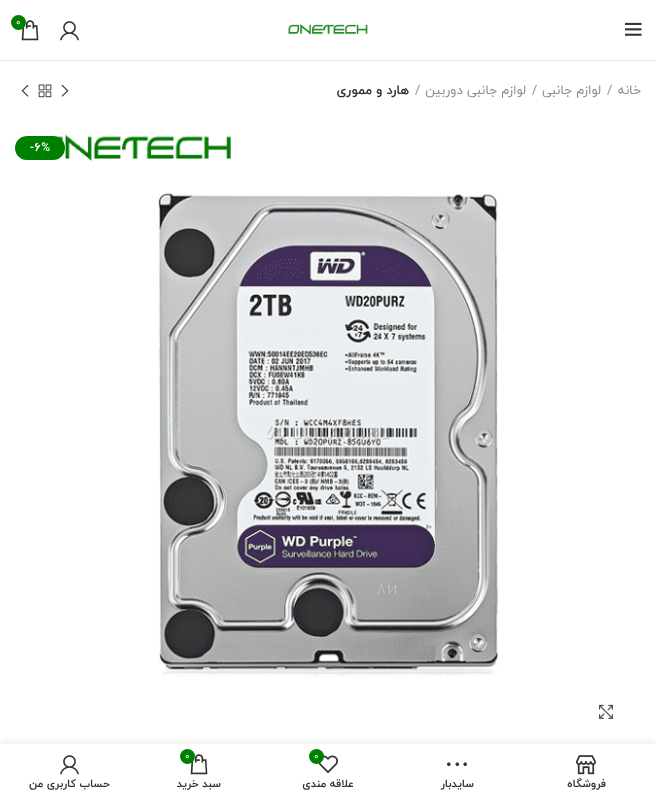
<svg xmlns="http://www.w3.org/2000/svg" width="656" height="799">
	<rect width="100%" height="100%" fill="#FFFFFF" />
	<rect x="0" y="60" width="656" height="1" fill="#E6E6E6" />
	<image x="625" y="22" width="17" height="14" href="assets/img1.png" />
	<image x="288" y="24" width="80" height="11" href="assets/img2.png" />
	<image x="60" y="21" width="19" height="20" href="assets/img3.png" />
	<image x="21" y="20" width="18" height="21" href="assets/img4.png" />
	<circle cx="18.5" cy="22.5" r="7.5" fill="#008001" />
	<text x="16" y="25" font-family="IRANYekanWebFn" font-size="9" fill="#FFFFFF">0</text>
	<text x="641" y="94" font-family="IRANYekanWebFn" font-size="13" direction="rtl" fill="#8E8E8E">خانه</text>
	<text x="607" y="94" font-family="IRANYekanWebFn" font-size="13" fill="#8E8E8E">/</text>
	<text x="601" y="94" font-family="IRANYekanWebFn" font-size="13" direction="rtl" fill="#8E8E8E">لوازم جانبی</text>
	<text x="532" y="94" font-family="IRANYekanWebFn" font-size="13" fill="#8E8E8E">/</text>
	<text x="526" y="94" font-family="IRANYekanWebFn" font-size="13" direction="rtl" fill="#8E8E8E">لوازم جانبی دوربین</text>
	<text x="415" y="94" font-family="IRANYekanWebFn" font-size="13" fill="#8E8E8E">/</text>
	<text x="409" y="94" font-family="IRANYekanWebFn" font-size="13" font-weight="700" direction="rtl" fill="#333333">هارد و مموری</text>
	<image x="61" y="84" width="8" height="13" href="assets/img5.png" />
	<image x="38" y="84" width="14" height="14" href="assets/img6.png" />
	<image x="21" y="84" width="8" height="13" href="assets/img7.png" />
	<image x="35" y="134" width="467" height="544" href="assets/img8.png" />
	<image x="599" y="704" width="14" height="15" href="assets/img9.png" />
	<rect x="15" y="136" width="50" height="24" rx="12" fill="#008001" />
	<text x="30" y="151" font-family="IRANYekanWebFn" font-size="12" font-weight="700" letter-spacing="0.5" fill="#FFFFFF">-6%</text>
	<rect x="0" y="744" width="656" height="55" fill="#000000" fill-opacity="0.12" filter="blur(4.5px)" />
	<rect x="0" y="744" width="656" height="55" fill="#FFFFFF" />
	<image x="576" y="755" width="20" height="20" href="assets/img10.png" />
	<text x="606" y="787" font-family="IRANYekanWebFn" font-size="11" font-weight="700" direction="rtl" fill="#333333">فروشگاه</text>
	<image x="447" y="762" width="20" height="5" href="assets/img11.png" />
	<text x="474" y="787" font-family="IRANYekanWebFn" font-size="11" font-weight="700" direction="rtl" fill="#333333">سایدبار</text>
	<image x="318" y="755" width="20" height="18" href="assets/img12.png" />
	<circle cx="316.5" cy="756.5" r="7.5" fill="#008001" />
	<text x="314" y="759" font-family="IRANYekanWebFn" font-size="9" fill="#FFFFFF">0</text>
	<text x="354" y="787" font-family="IRANYekanWebFn" font-size="11" font-weight="700" direction="rtl" fill="#333333">علاقه مندی</text>
	<image x="190" y="754" width="18" height="21" href="assets/img4.png" />
	<circle cx="187.5" cy="756.5" r="7.5" fill="#008001" />
	<text x="185" y="759" font-family="IRANYekanWebFn" font-size="9" fill="#FFFFFF">0</text>
	<text x="221" y="787" font-family="IRANYekanWebFn" font-size="11" font-weight="700" direction="rtl" fill="#333333">سبد خرید</text>
	<image x="60" y="755" width="19" height="20" href="assets/img3.png" />
	<text x="110" y="787" font-family="IRANYekanWebFn" font-size="11" font-weight="700" direction="rtl" fill="#333333">حساب کاربری من</text>
</svg>
